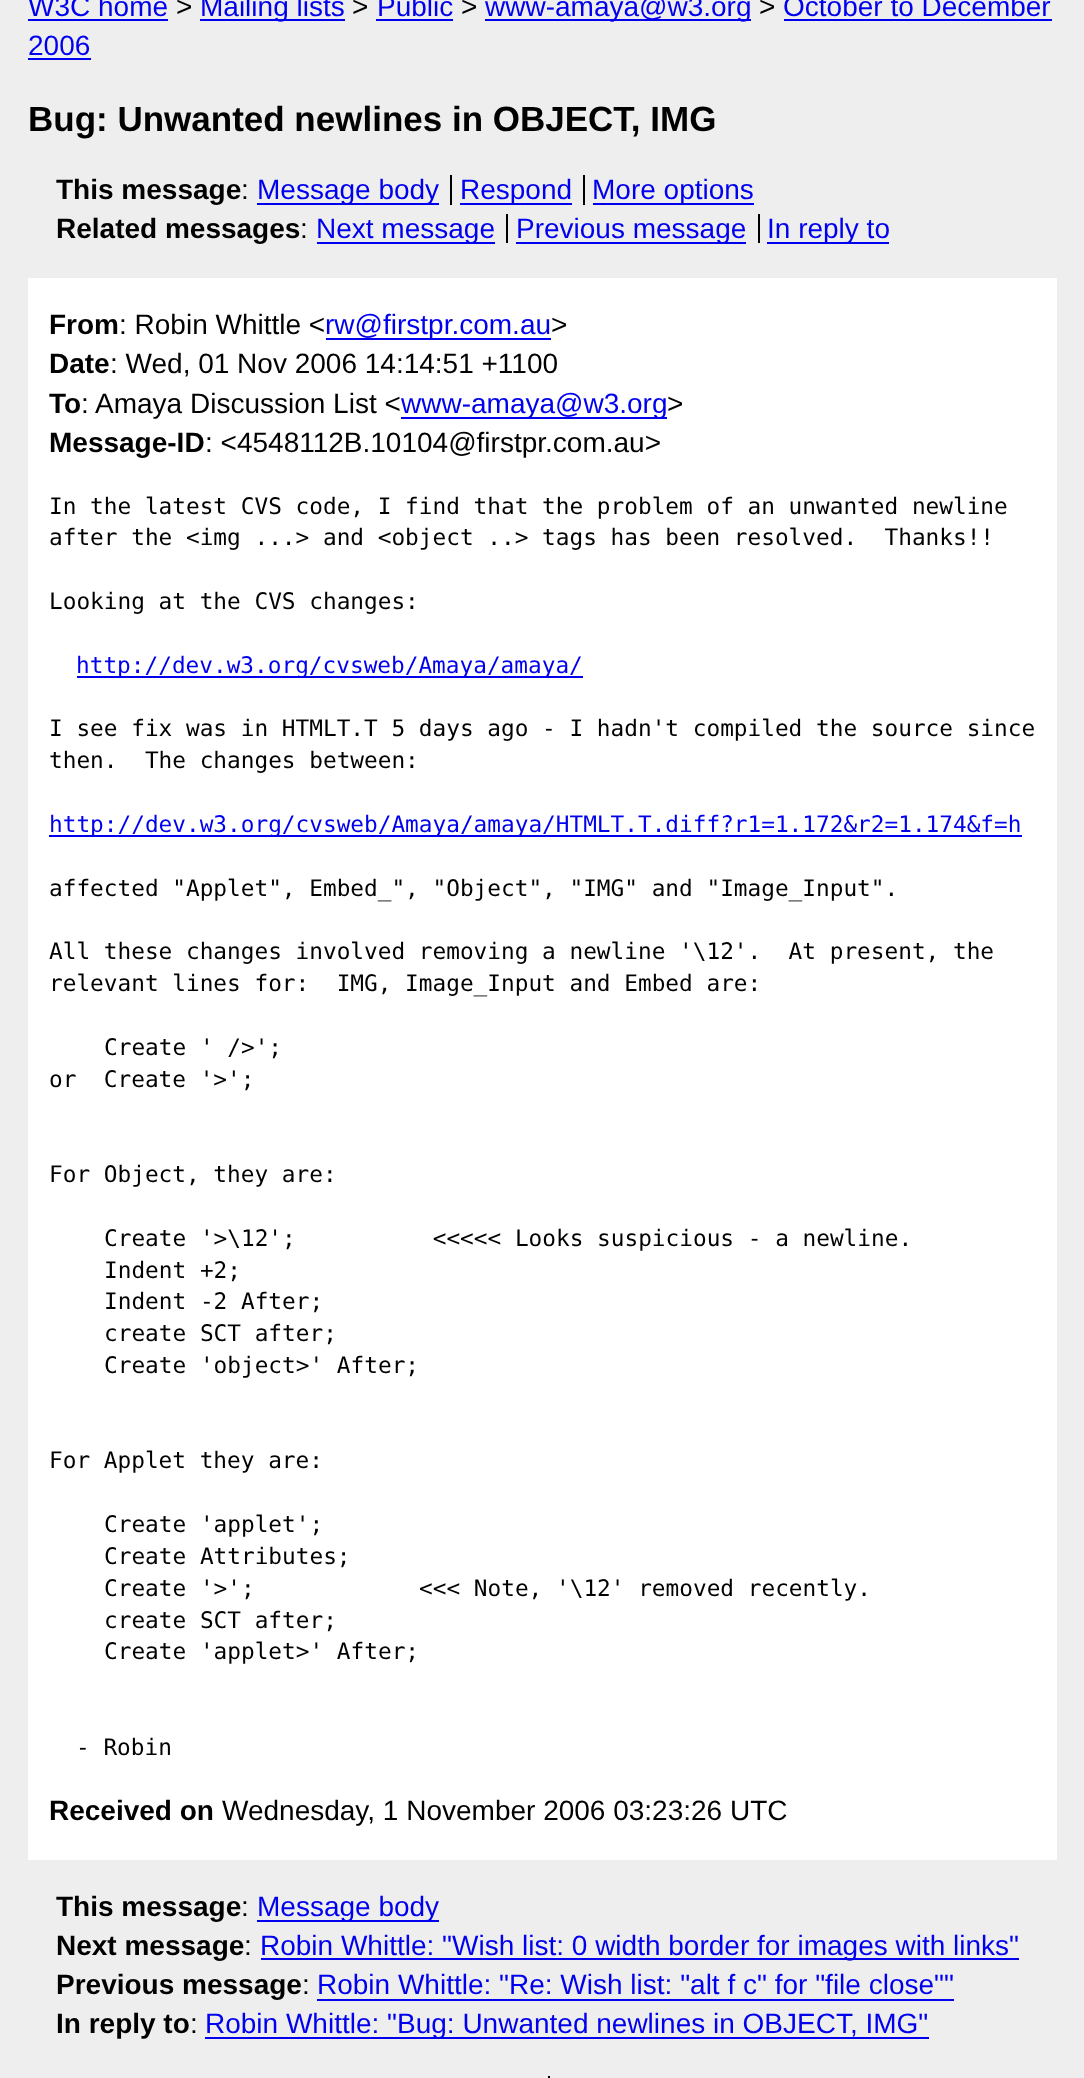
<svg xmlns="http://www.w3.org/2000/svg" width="1084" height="2078">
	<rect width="100%" height="100%" fill="#EEEEEE" />
	<text x="28" y="16" font-family="Liberation Sans" font-size="28" fill="#0000EE">W3C home</text>
	<rect x="28" y="19" width="140" height="2" fill="#0000EE" />
	<text x="176" y="16" font-family="Liberation Sans" font-size="28" fill="#000000">&gt;</text>
	<rect x="200" y="19" width="145" height="2" fill="#0000EE" />
	<text x="200" y="16" font-family="Liberation Sans" font-size="28" fill="#0000EE">Mailing lists</text>
	<text x="352" y="16" font-family="Liberation Sans" font-size="28" fill="#000000">&gt;</text>
	<text x="377" y="16" font-family="Liberation Sans" font-size="28" fill="#0000EE">Public</text>
	<rect x="376" y="19" width="77" height="2" fill="#0000EE" />
	<text x="461" y="16" font-family="Liberation Sans" font-size="28" fill="#000000">&gt;</text>
	<rect x="485" y="19" width="266" height="2" fill="#0000EE" />
	<text x="485" y="16" font-family="Liberation Sans" font-size="28" fill="#0000EE">www-amaya@w3.org</text>
	<text x="759" y="16" font-family="Liberation Sans" font-size="28" fill="#000000">&gt;</text>
	<text x="783" y="16" font-family="Liberation Sans" font-size="28" fill="#0000EE">October to December</text>
	<rect x="784" y="19" width="268" height="2" fill="#0000EE" />
	<text x="28" y="55" font-family="Liberation Sans" font-size="28" fill="#0000EE">2006</text>
	<rect x="28" y="58" width="63" height="2" fill="#0000EE" />
	<text x="28" y="131" font-family="Liberation Sans" font-size="35" font-weight="700" fill="#000000">Bug: Unwanted newlines in OBJECT, IMG</text>
	<text x="56" y="199" font-family="Liberation Sans" font-size="28" font-weight="700" fill="#000000">This message</text>
	<text x="241" y="199" font-family="Liberation Sans" font-size="28" fill="#000000">:</text>
	<rect x="257" y="203" width="182" height="2" fill="#0000EE" />
	<text x="257" y="199" font-family="Liberation Sans" font-size="28" fill="#0000EE">Message body</text>
	<rect x="460" y="203" width="112" height="2" fill="#0000EE" />
	<text x="460" y="199" font-family="Liberation Sans" font-size="28" fill="#0000EE">Respond</text>
	<rect x="450" y="175" width="2" height="30" fill="#000000" />
	<rect x="593" y="203" width="161" height="2" fill="#0000EE" />
	<text x="592" y="199" font-family="Liberation Sans" font-size="28" fill="#0000EE">More options</text>
	<rect x="583" y="175" width="2" height="30" fill="#000000" />
	<text x="56" y="238" font-family="Liberation Sans" font-size="28" font-weight="700" fill="#000000">Related messages</text>
	<text x="300" y="238" font-family="Liberation Sans" font-size="28" fill="#000000">:</text>
	<rect x="317" y="242" width="178" height="2" fill="#0000EE" />
	<text x="316" y="238" font-family="Liberation Sans" font-size="28" fill="#0000EE">Next message</text>
	<rect x="516" y="242" width="230" height="2" fill="#0000EE" />
	<text x="516" y="238" font-family="Liberation Sans" font-size="28" fill="#0000EE">Previous message</text>
	<rect x="506" y="214" width="2" height="29" fill="#000000" />
	<rect x="767" y="242" width="122" height="2" fill="#0000EE" />
	<text x="767" y="238" font-family="Liberation Sans" font-size="28" fill="#0000EE">In reply to</text>
	<rect x="758" y="214" width="2" height="29" fill="#000000" />
	<rect x="28" y="278" width="1029" height="1582" fill="#FFFFFF" />
	<text x="49" y="334" font-family="Liberation Sans" font-size="28" font-weight="700" fill="#000000">From</text>
	<text x="119" y="334" font-family="Liberation Sans" font-size="28" fill="#000000">: Robin Whittle &lt;</text>
	<rect x="326" y="338" width="225" height="2" fill="#0000EE" />
	<text x="325" y="334" font-family="Liberation Sans" font-size="28" fill="#0000EE">rw@firstpr.com.au</text>
	<text x="551" y="334" font-family="Liberation Sans" font-size="28" fill="#000000">&gt;</text>
	<text x="49" y="373" font-family="Liberation Sans" font-size="28" font-weight="700" fill="#000000">Date</text>
	<text x="110" y="373" font-family="Liberation Sans" font-size="28" fill="#000000">: Wed, 01 Nov 2006 14:14:51 +1100</text>
	<text x="49" y="413" font-family="Liberation Sans" font-size="28" font-weight="700" fill="#000000">To</text>
	<text x="81" y="413" font-family="Liberation Sans" font-size="28" fill="#000000">: Amaya Discussion List &lt;</text>
	<rect x="401" y="417" width="266" height="2" fill="#0000EE" />
	<text x="401" y="413" font-family="Liberation Sans" font-size="28" fill="#0000EE">www-amaya@w3.org</text>
	<text x="667" y="413" font-family="Liberation Sans" font-size="28" fill="#000000">&gt;</text>
	<text x="49" y="452" font-family="Liberation Sans" font-size="28" font-weight="700" fill="#000000">Message-ID</text>
	<text x="205" y="452" font-family="Liberation Sans" font-size="28" fill="#000000">: &lt;4548112B.10104@firstpr.com.au&gt;</text>
	<g font-family="DejaVu Sans Mono" font-size="22.75" fill="#000000">
		<text x="49" y="514">In the latest CVS code, I find that the problem of an unwanted newline</text>
		<text x="49" y="545" xml:space="preserve">after the &lt;img ...&gt; and &lt;object ..&gt; tags has been resolved.  Thanks!!</text>
		<text x="49" y="609">Looking at the CVS changes:</text>
	</g>
	<rect x="77" y="676" width="506" height="2" fill="#0000EE" />
	<text x="76" y="673" font-family="DejaVu Sans Mono" font-size="22.75" fill="#0000EE">http://dev.w3.org/cvsweb/Amaya/amaya/</text>
	<g font-family="DejaVu Sans Mono" font-size="22.75" fill="#000000">
		<text x="49" y="736">I see fix was in HTMLT.T 5 days ago - I hadn't compiled the source since</text>
		<text x="49" y="768" xml:space="preserve">then.  The changes between:</text>
	</g>
	<rect x="49" y="835" width="973" height="2" fill="#0000EE" />
	<text x="49" y="832" font-family="DejaVu Sans Mono" font-size="22.75" fill="#0000EE">http://dev.w3.org/cvsweb/Amaya/amaya/HTMLT.T.diff?r1=1.172&amp;r2=1.174&amp;f=h</text>
	<g font-family="DejaVu Sans Mono" font-size="22.75" fill="#000000">
		<text x="49" y="896">affected "Applet", Embed_", "Object", "IMG" and "Image_Input".</text>
		<text x="49" y="959" xml:space="preserve">All these changes involved removing a newline '\12'.  At present, the</text>
		<text x="49" y="991" xml:space="preserve">relevant lines for:  IMG, Image_Input and Embed are:</text>
		<text x="104" y="1055">Create ' /&gt;';</text>
		<text x="49" y="1087" xml:space="preserve">or  Create '&gt;';</text>
		<text x="49" y="1182">For Object, they are:</text>
		<text x="104" y="1246" xml:space="preserve">Create '&gt;\12';          &lt;&lt;&lt;&lt;&lt; Looks suspicious - a newline.</text>
		<text x="104" y="1278">Indent +2;</text>
		<text x="104" y="1309">Indent -2 After;</text>
		<text x="104" y="1341">create SCT after;</text>
		<text x="104" y="1373">Create 'object&gt;' After;</text>
		<text x="49" y="1468">For Applet they are:</text>
		<text x="104" y="1532">Create 'applet';</text>
		<text x="104" y="1564">Create Attributes;</text>
		<text x="104" y="1596" xml:space="preserve">Create '&gt;';            &lt;&lt;&lt; Note, '\12' removed recently.</text>
		<text x="104" y="1628">create SCT after;</text>
		<text x="104" y="1659">Create 'applet&gt;' After;</text>
		<text x="76" y="1755">- Robin</text>
	</g>
	<text x="49" y="1820" font-family="Liberation Sans" font-size="28" font-weight="700" fill="#000000">Received on</text>
	<text x="222" y="1820" font-family="Liberation Sans" font-size="28" fill="#000000">Wednesday, 1 November 2006 03:23:26 UTC</text>
	<text x="56" y="1916" font-family="Liberation Sans" font-size="28" font-weight="700" fill="#000000">This message</text>
	<text x="241" y="1916" font-family="Liberation Sans" font-size="28" fill="#000000">:</text>
	<rect x="257" y="1920" width="182" height="2" fill="#0000EE" />
	<text x="257" y="1916" font-family="Liberation Sans" font-size="28" fill="#0000EE">Message body</text>
	<text x="56" y="1955" font-family="Liberation Sans" font-size="28" font-weight="700" fill="#000000">Next message</text>
	<text x="244" y="1955" font-family="Liberation Sans" font-size="28" fill="#000000">:</text>
	<rect x="261" y="1958" width="758" height="2" fill="#0000EE" />
	<text x="260" y="1955" font-family="Liberation Sans" font-size="28" fill="#0000EE">Robin Whittle: "Wish list: 0 width border for images with links"</text>
	<text x="56" y="1994" font-family="Liberation Sans" font-size="28" font-weight="700" fill="#000000">Previous message</text>
	<text x="302" y="1994" font-family="Liberation Sans" font-size="28" fill="#000000">:</text>
	<text x="317" y="1994" font-family="Liberation Sans" font-size="28" fill="#0000EE">Robin Whittle: "Re: Wish list: "alt f c" for "file close""</text>
	<rect x="317" y="1999" width="637" height="2" fill="#0000EE" />
	<text x="56" y="2033" font-family="Liberation Sans" font-size="28" font-weight="700" fill="#000000">In reply to</text>
	<text x="190" y="2033" font-family="Liberation Sans" font-size="28" fill="#000000">:</text>
	<rect x="205" y="2037" width="724" height="2" fill="#0000EE" />
	<text x="205" y="2033" font-family="Liberation Sans" font-size="28" fill="#0000EE">Robin Whittle: "Bug: Unwanted newlines in OBJECT, IMG"</text>
	<rect x="548" y="2076" width="2" height="2" fill="#000000" />
</svg>
